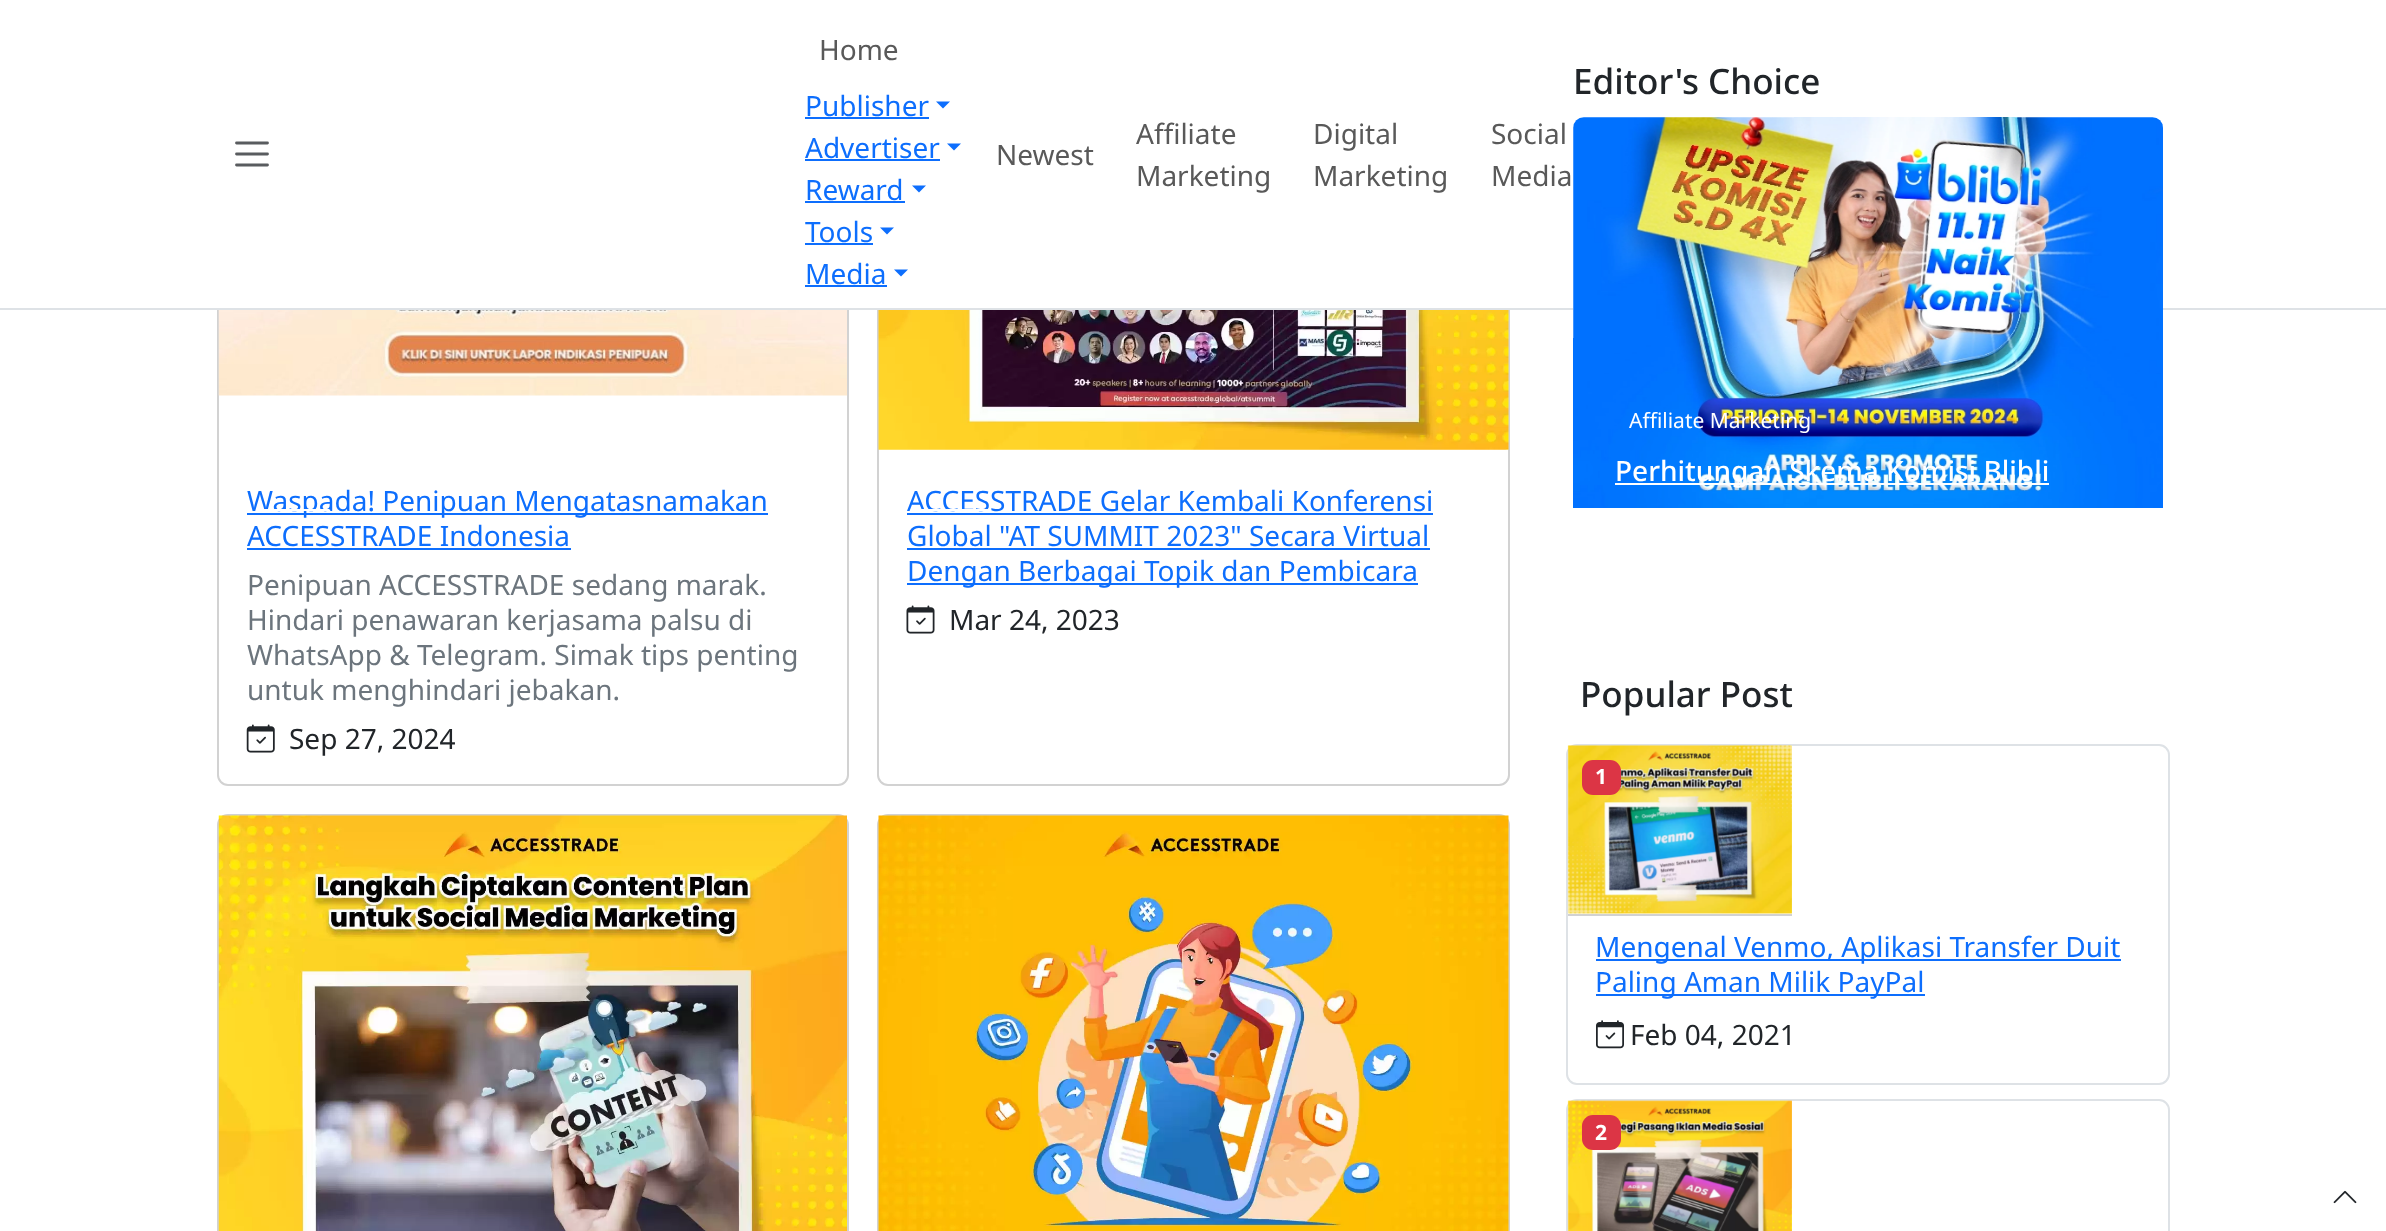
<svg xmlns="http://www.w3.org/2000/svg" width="2386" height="1231">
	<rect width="100%" height="100%" fill="#FFFFFF" />
	<rect x="218" y="-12" width="630" height="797" rx="10" fill="none" stroke="#D2D2D2" stroke-width="2" />
	<rect x="878" y="-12" width="631" height="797" rx="10" fill="none" stroke="#D2D2D2" stroke-width="2" />
	<rect x="217" y="0" width="1293" height="308" fill="#FFFFFF" />
	<rect x="0" y="308" width="2386" height="2" fill="#DEE2E6" />
	<path d="M236.5 143H267.5M236.5 154H267.5M236.5 165H267.5" fill="none" stroke="#595C5F" stroke-width="2.8" stroke-linecap="round" />
	<text x="819" y="60" font-family="Noto Sans" font-size="28" fill="#595959">Home</text>
	<text x="805" y="116" font-family="Noto Sans" font-size="28" fill="#0D6EFD">Publisher</text>
	<rect x="805" y="117" width="124" height="2" fill="#0D6EFD" />
	<path d="M936 101.5H950L943 108.5Z" fill="#0D6EFD" />
	<text x="805" y="158" font-family="Noto Sans" font-size="28" fill="#0D6EFD">Advertiser</text>
	<rect x="805" y="159" width="135" height="2" fill="#0D6EFD" />
	<path d="M947 143.5H961L954 150.5Z" fill="#0D6EFD" />
	<text x="805" y="200" font-family="Noto Sans" font-size="28" fill="#0D6EFD">Reward</text>
	<rect x="805" y="201" width="100" height="2" fill="#0D6EFD" />
	<path d="M912 185.5H926L919 192.5Z" fill="#0D6EFD" />
	<text x="805" y="242" font-family="Noto Sans" font-size="28" fill="#0D6EFD">Tools</text>
	<rect x="805" y="243" width="68" height="2" fill="#0D6EFD" />
	<path d="M880 227.5H894L887 234.5Z" fill="#0D6EFD" />
	<text x="805" y="284" font-family="Noto Sans" font-size="28" fill="#0D6EFD">Media</text>
	<rect x="805" y="285" width="82" height="2" fill="#0D6EFD" />
	<path d="M894 269.5H908L901 276.5Z" fill="#0D6EFD" />
	<g font-family="Noto Sans" font-size="28" fill="#595959">
		<text x="996" y="165">Newest</text>
		<text x="1136" y="144">Affiliate</text>
		<text x="1136" y="186">Marketing</text>
		<text x="1313" y="144">Digital</text>
		<text x="1313" y="186">Marketing</text>
		<text x="1491" y="144">Social</text>
		<text x="1491" y="186">Media</text>
	</g>
	<image x="218" y="310" width="629" height="86" href="assets/img1.png" />
	<rect x="247" y="513" width="521" height="2" fill="#0D6EFD" />
	<g font-family="Noto Sans" font-size="28" fill="#0D6EFD">
		<text x="247" y="511">Waspada! Penipuan Mengatasnamakan</text>
		<text x="247" y="546">ACCESSTRADE Indonesia</text>
	</g>
	<rect x="247" y="548" width="324" height="2" fill="#0D6EFD" />
	<rect x="261" y="509" width="68" height="2" fill="#FFFFFF" />
	<g font-family="Noto Sans" font-size="28" fill="#6C757D">
		<text x="247" y="595">Penipuan ACCESSTRADE sedang marak.</text>
		<text x="247" y="630">Hindari penawaran kerjasama palsu di</text>
		<text x="247" y="665">WhatsApp &amp; Telegram. Simak tips penting</text>
		<text x="247" y="700">untuk menghindari jebakan.</text>
	</g>
	<image x="246" y="724" width="29" height="29" href="assets/img2.png" />
	<text x="289" y="749" font-family="Noto Sans" font-size="28" fill="#212529">Sep 27, 2024</text>
	<image x="878" y="310" width="631" height="140" href="assets/img3.png" />
	<text x="907" y="511" font-family="Noto Sans" font-size="28" fill="#0D6EFD">ACCESSTRADE Gelar Kembali Konferensi</text>
	<rect x="907" y="513" width="526" height="2" fill="#0D6EFD" />
	<text x="907" y="546" font-family="Noto Sans" font-size="28" fill="#0D6EFD">Global "AT SUMMIT 2023" Secara Virtual</text>
	<rect x="907" y="548" width="523" height="2" fill="#0D6EFD" />
	<rect x="907" y="583" width="511" height="2" fill="#0D6EFD" />
	<text x="907" y="581" font-family="Noto Sans" font-size="28" fill="#0D6EFD">Dengan Berbagai Topik dan Pembicara</text>
	<rect x="921" y="509" width="68" height="2" fill="#FFFFFF" />
	<image x="906" y="605" width="29" height="29" href="assets/img4.png" />
	<text x="949" y="630" font-family="Noto Sans" font-size="28" fill="#212529">Mar 24, 2023</text>
	<rect x="218" y="815" width="630" height="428" rx="10" fill="none" stroke="#D2D2D2" stroke-width="2" />
	<image x="218" y="815" width="629" height="416" href="assets/img5.png" />
	<rect x="878" y="815" width="631" height="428" rx="10" fill="none" stroke="#D2D2D2" stroke-width="2" />
	<image x="878" y="815" width="631" height="416" href="assets/img6.png" />
	<text x="1573" y="94" font-family="Noto Sans" font-size="35" font-weight="500" fill="#212529">Editor's Choice</text>
	<rect x="1573" y="117" width="590" height="504" rx="11" fill="#FFFFFF" />
	<image x="1573" y="117" width="590" height="391" href="assets/img7.png" />
	<text x="1629" y="428" font-family="Noto Sans" font-size="21" fill="#FFFFFF">Affiliate Marketing</text>
	<rect x="1615" y="483" width="434" height="2" fill="#FFFFFF" />
	<text x="1615" y="481" font-family="Noto Sans" font-size="28" font-weight="500" fill="#FFFFFF">Perhitungan Skema Komisi Blibli</text>
	<text x="1580" y="707" font-family="Noto Sans" font-size="35" font-weight="500" fill="#212529">Popular Post</text>
	<rect x="1567" y="745" width="602" height="339" rx="10" fill="none" stroke="#DEE2E6" stroke-width="2" />
	<rect x="1568" y="914" width="224" height="2" fill="#D2D2D2" />
	<image x="1567" y="745" width="225" height="169" href="assets/img8.png" />
	<rect x="1582" y="760" width="39" height="35" rx="11" fill="#DC3545" />
	<text x="1595" y="784" font-family="Noto Sans" font-size="21" font-weight="700" fill="#FFFFFF">1</text>
	<rect x="1596" y="959" width="525" height="2" fill="#0D6EFD" />
	<text x="1595" y="957" font-family="Noto Sans" font-size="28" fill="#0D6EFD">Mengenal Venmo, Aplikasi Transfer Duit</text>
	<rect x="1596" y="994" width="329" height="2" fill="#0D6EFD" />
	<text x="1595" y="992" font-family="Noto Sans" font-size="28" fill="#0D6EFD">Paling Aman Milik PayPal</text>
	<image x="1596" y="1020" width="28" height="29" href="assets/img9.png" />
	<text x="1630" y="1045" font-family="Noto Sans" font-size="28" fill="#212529">Feb 04, 2021</text>
	<rect x="1567" y="1100" width="602" height="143" rx="10" fill="none" stroke="#DEE2E6" stroke-width="2" />
	<image x="1567" y="1100" width="225" height="131" href="assets/img10.png" />
	<rect x="1582" y="1115" width="39" height="35" rx="11" fill="#DC3545" />
	<text x="1595" y="1140" font-family="Noto Sans" font-size="21" font-weight="700" fill="#FFFFFF">2</text>
	<image x="2333" y="1190" width="24" height="14" href="assets/img11.png" />
</svg>
